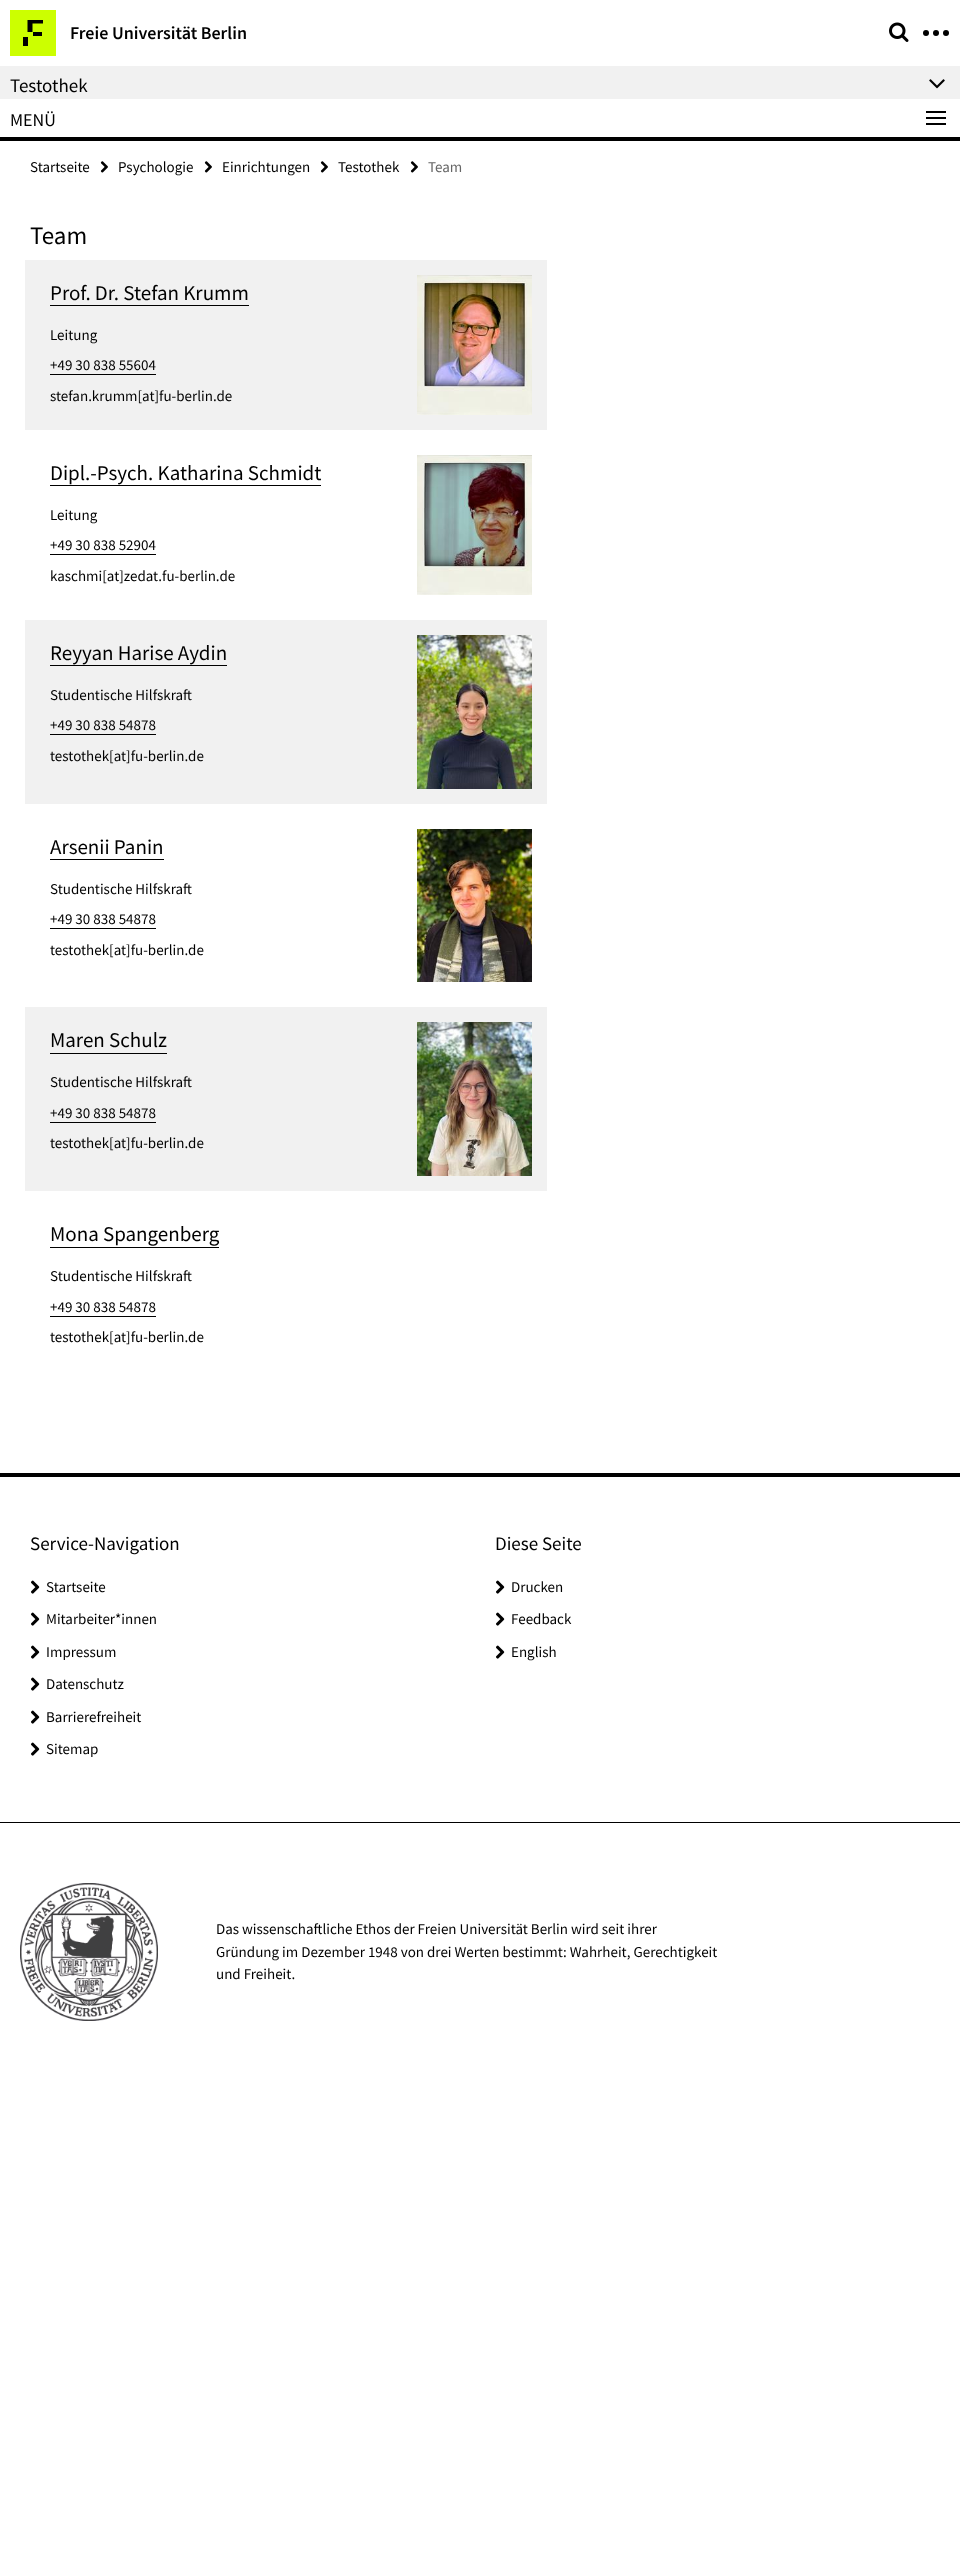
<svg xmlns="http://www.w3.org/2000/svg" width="960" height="2562">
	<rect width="100%" height="100%" fill="#FFFFFF" />
	<rect x="10" y="10" width="46" height="46" fill="#CCFF00" />
	<path d="M27.5 20H43V23.5H32.5V32H27.5Z" fill="#000000" />
	<rect x="33" y="32" width="9" height="4" fill="#000000" />
	<rect x="23" y="37" width="5" height="9" fill="#000000" />
	<text x="70" y="39" font-family="Source Sans Pro" font-size="18" font-weight="600" fill="#000000">Freie Universität Berlin</text>
	<image x="889" y="22" width="20" height="20" href="assets/img1.png" />
	<circle cx="926" cy="33" r="3" fill="#000000" />
	<circle cx="936" cy="33" r="3" fill="#000000" />
	<circle cx="946" cy="33" r="3" fill="#000000" />
	<rect x="0" y="66" width="960" height="33" fill="#F1F1F1" />
	<text x="10" y="92" font-family="Source Sans Pro" font-size="19" fill="#000000">Testothek</text>
	<image x="929" y="79" width="16" height="10" href="assets/img2.png" />
	<rect x="0" y="137" width="960" height="4" fill="#000000" />
	<text x="10" y="126" font-family="Source Sans Pro" font-size="18" fill="#000000">MENÜ</text>
	<rect x="926" y="111" width="20" height="2" fill="#000000" />
	<rect x="926" y="117" width="20" height="2" fill="#000000" />
	<rect x="926" y="123" width="20" height="2" fill="#000000" />
	<text x="30" y="172" font-family="Source Sans Pro" font-size="15" fill="#000000">Startseite</text>
	<image x="100" y="161" width="8" height="12" href="assets/img3.png" />
	<text x="118" y="172" font-family="Source Sans Pro" font-size="15" fill="#000000">Psychologie</text>
	<image x="204" y="161" width="8" height="12" href="assets/img3.png" />
	<text x="222" y="172" font-family="Source Sans Pro" font-size="15" fill="#000000">Einrichtungen</text>
	<image x="320" y="161" width="8" height="12" href="assets/img3.png" />
	<text x="338" y="172" font-family="Source Sans Pro" font-size="15" fill="#000000">Testothek</text>
	<image x="410" y="161" width="8" height="12" href="assets/img3.png" />
	<text x="428" y="172" font-family="Source Sans Pro" font-size="15" fill="#666666">Team</text>
	<text x="30" y="244" font-family="Source Sans Pro" font-size="25" fill="#000000">Team</text>
	<rect x="25" y="260" width="522" height="170" fill="#F1F1F1" />
	<text x="50" y="300" font-family="Source Sans Pro" font-size="21" fill="#000000">Prof. Dr. Stefan Krumm</text>
	<rect x="50" y="305" width="199" height="1" fill="#000000" />
	<g font-family="Source Sans Pro" font-size="15" fill="#000000">
		<text x="50" y="340">Leitung</text>
		<text x="50" y="370">+49 30 838 55604</text>
	</g>
	<rect x="50" y="374" width="106" height="1" fill="#000000" />
	<text x="50" y="401" font-family="Source Sans Pro" font-size="15" fill="#000000">stefan.krumm[at]fu-berlin.de</text>
	<image x="417" y="275" width="115" height="140" href="assets/img4.png" />
	<text x="50" y="480" font-family="Source Sans Pro" font-size="21" fill="#000000">Dipl.-Psych. Katharina Schmidt</text>
	<rect x="50" y="485" width="271" height="1" fill="#000000" />
	<g font-family="Source Sans Pro" font-size="15" fill="#000000">
		<text x="50" y="520">Leitung</text>
		<text x="50" y="550">+49 30 838 52904</text>
	</g>
	<rect x="50" y="554" width="106" height="1" fill="#000000" />
	<text x="50" y="581" font-family="Source Sans Pro" font-size="15" fill="#000000">kaschmi[at]zedat.fu-berlin.de</text>
	<image x="417" y="455" width="115" height="140" href="assets/img5.png" />
	<rect x="25" y="620" width="522" height="184" fill="#F1F1F1" />
	<text x="50" y="660" font-family="Source Sans Pro" font-size="21" fill="#000000">Reyyan Harise Aydin</text>
	<rect x="50" y="665" width="177" height="1" fill="#000000" />
	<g font-family="Source Sans Pro" font-size="15" fill="#000000">
		<text x="50" y="700">Studentische Hilfskraft</text>
		<text x="50" y="730">+49 30 838 54878</text>
	</g>
	<rect x="50" y="734" width="106" height="1" fill="#000000" />
	<text x="50" y="761" font-family="Source Sans Pro" font-size="15" fill="#000000">testothek[at]fu-berlin.de</text>
	<image x="417" y="635" width="115" height="154" href="assets/img6.png" />
	<text x="50" y="854" font-family="Source Sans Pro" font-size="21" fill="#000000">Arsenii Panin</text>
	<rect x="50" y="859" width="114" height="1" fill="#000000" />
	<g font-family="Source Sans Pro" font-size="15" fill="#000000">
		<text x="50" y="894">Studentische Hilfskraft</text>
		<text x="50" y="924">+49 30 838 54878</text>
	</g>
	<rect x="50" y="928" width="106" height="1" fill="#000000" />
	<text x="50" y="955" font-family="Source Sans Pro" font-size="15" fill="#000000">testothek[at]fu-berlin.de</text>
	<image x="417" y="829" width="115" height="153" href="assets/img7.png" />
	<rect x="25" y="1007" width="522" height="184" fill="#F1F1F1" />
	<text x="50" y="1047" font-family="Source Sans Pro" font-size="21" fill="#000000">Maren Schulz</text>
	<rect x="50" y="1053" width="117" height="1" fill="#000000" />
	<g font-family="Source Sans Pro" font-size="15" fill="#000000">
		<text x="50" y="1087">Studentische Hilfskraft</text>
		<text x="50" y="1118">+49 30 838 54878</text>
	</g>
	<rect x="50" y="1122" width="106" height="1" fill="#000000" />
	<text x="50" y="1148" font-family="Source Sans Pro" font-size="15" fill="#000000">testothek[at]fu-berlin.de</text>
	<image x="417" y="1022" width="115" height="154" href="assets/img8.png" />
	<text x="50" y="1241" font-family="Source Sans Pro" font-size="21" fill="#000000">Mona Spangenberg</text>
	<rect x="50" y="1247" width="169" height="1" fill="#000000" />
	<g font-family="Source Sans Pro" font-size="15" fill="#000000">
		<text x="50" y="1281">Studentische Hilfskraft</text>
		<text x="50" y="1312">+49 30 838 54878</text>
	</g>
	<rect x="50" y="1316" width="106" height="1" fill="#000000" />
	<text x="50" y="1342" font-family="Source Sans Pro" font-size="15" fill="#000000">testothek[at]fu-berlin.de</text>
	<rect x="0" y="1473" width="960" height="4" fill="#000000" />
	<rect x="0" y="1822" width="960" height="1" fill="#000000" />
	<text x="30" y="1550" font-family="Source Sans Pro" font-size="19" fill="#000000">Service-Navigation</text>
	<image x="31" y="1580" width="9" height="14" href="assets/img9.png" />
	<text x="46" y="1592" font-family="Source Sans Pro" font-size="15" fill="#000000">Startseite</text>
	<image x="31" y="1612" width="9" height="14" href="assets/img9.png" />
	<text x="46" y="1624" font-family="Source Sans Pro" font-size="15" fill="#000000">Mitarbeiter*innen</text>
	<image x="31" y="1645" width="9" height="14" href="assets/img9.png" />
	<text x="46" y="1657" font-family="Source Sans Pro" font-size="15" fill="#000000">Impressum</text>
	<image x="31" y="1677" width="9" height="14" href="assets/img9.png" />
	<text x="46" y="1689" font-family="Source Sans Pro" font-size="15" fill="#000000">Datenschutz</text>
	<image x="31" y="1710" width="9" height="14" href="assets/img9.png" />
	<text x="46" y="1722" font-family="Source Sans Pro" font-size="15" fill="#000000">Barrierefreiheit</text>
	<image x="31" y="1742" width="9" height="14" href="assets/img9.png" />
	<text x="46" y="1754" font-family="Source Sans Pro" font-size="15" fill="#000000">Sitemap</text>
	<text x="495" y="1550" font-family="Source Sans Pro" font-size="19" fill="#000000">Diese Seite</text>
	<image x="496" y="1580" width="9" height="14" href="assets/img9.png" />
	<text x="511" y="1592" font-family="Source Sans Pro" font-size="15" fill="#000000">Drucken</text>
	<image x="496" y="1612" width="9" height="14" href="assets/img9.png" />
	<text x="511" y="1624" font-family="Source Sans Pro" font-size="15" fill="#000000">Feedback</text>
	<image x="496" y="1645" width="9" height="14" href="assets/img9.png" />
	<text x="511" y="1657" font-family="Source Sans Pro" font-size="15" fill="#000000">English</text>
	<image x="20" y="1883" width="138" height="138" href="assets/img10.png" />
	<g font-family="Source Sans Pro" font-size="15" fill="#000000">
		<text x="216" y="1934">Das wissenschaftliche Ethos der Freien Universität Berlin wird seit ihrer</text>
		<text x="216" y="1957">Gründung im Dezember 1948 von drei Werten bestimmt: Wahrheit, Gerechtigkeit</text>
		<text x="216" y="1979">und Freiheit.</text>
	</g>
</svg>
